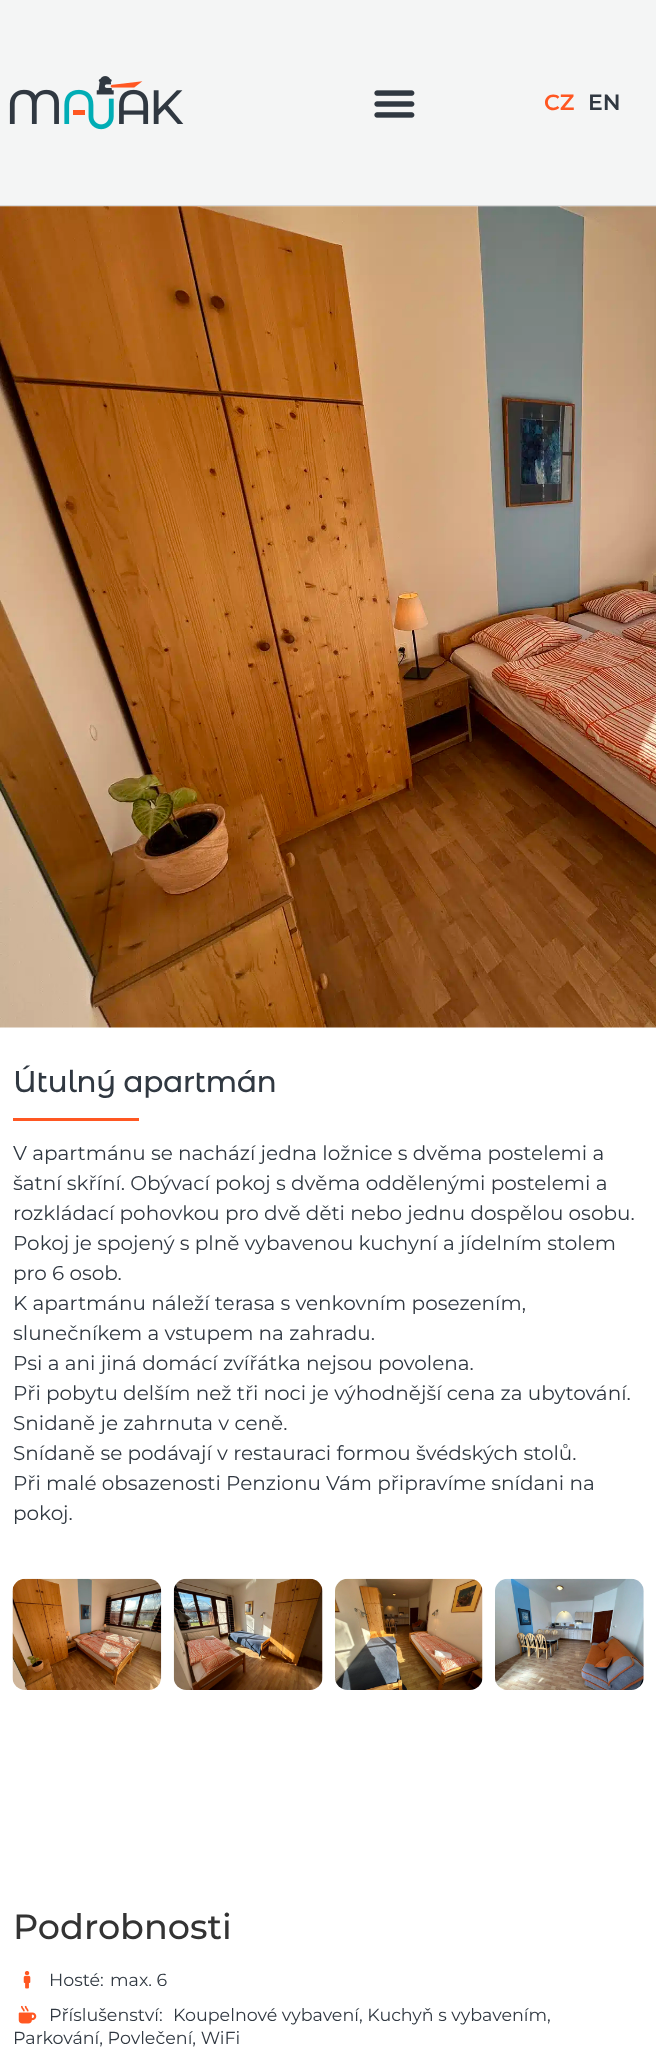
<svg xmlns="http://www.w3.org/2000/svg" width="656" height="2053">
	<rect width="100%" height="100%" fill="#FFFFFF" />
	<rect x="0" y="0" width="656" height="205" fill="#F4F5F5" />
	<rect x="0" y="205" width="656" height="1" fill="#D8D8D8" />
	<image x="9" y="76" width="175" height="54" href="assets/img1.png" />
	<image x="374" y="90" width="41" height="28" href="assets/img2.png" />
	<text x="544" y="110" font-family="Montserrat" font-size="22" font-weight="600" fill="#FF5722">CZ</text>
	<text x="588" y="110" font-family="Montserrat" font-size="22" font-weight="600" fill="#303841">EN</text>
	<image x="0" y="206" width="656" height="822" href="assets/img3.png" />
	<text x="13" y="1092" font-family="Montserrat Alternates" font-size="30" font-weight="500" letter-spacing="-0.6" fill="#303841">Útulný apartmán</text>
	<rect x="13" y="1118" width="126" height="3" fill="#FF5722" />
	<g font-family="Montserrat" font-size="20" fill="#303841">
		<text x="13" y="1160">V apartmánu se nachází jedna ložnice s dvěma postelemi a</text>
		<text x="13" y="1190">šatní skříní. Obývací pokoj s dvěma oddělenými postelemi a</text>
		<text x="13" y="1220">rozkládací pohovkou pro dvě děti nebo jednu dospělou osobu.</text>
		<text x="13" y="1250">Pokoj je spojený s plně vybavenou kuchyní a jídelním stolem</text>
		<text x="13" y="1280">pro 6 osob.</text>
		<text x="13" y="1310">K apartmánu náleží terasa s venkovním posezením,</text>
		<text x="13" y="1340">slunečníkem a vstupem na zahradu.</text>
		<text x="13" y="1370">Psi a ani jiná domácí zvířátka nejsou povolena.</text>
		<text x="13" y="1400">Při pobytu delším než tři noci je výhodnější cena za ubytování.</text>
		<text x="13" y="1430">Snidaně je zahrnuta v ceně.</text>
		<text x="13" y="1460">Snídaně se podávají v restauraci formou švédských stolů.</text>
		<text x="13" y="1490">Při malé obsazenosti Penzionu Vám připravíme snídani na</text>
		<text x="13" y="1520">pokoj.</text>
	</g>
	<image x="12" y="1578" width="150" height="112" href="assets/img4.png" />
	<image x="173" y="1578" width="150" height="112" href="assets/img5.png" />
	<image x="335" y="1578" width="148" height="112" href="assets/img6.png" />
	<image x="495" y="1578" width="149" height="112" href="assets/img7.png" />
	<text x="13" y="1939" font-family="Montserrat" font-size="35" font-weight="500" fill="#333333">Podrobnosti</text>
	<image x="23" y="1971" width="8" height="18" href="assets/img8.png" />
	<g font-family="Montserrat" font-size="17.5" fill="#303841">
		<text x="49" y="1986">Hosté:</text>
		<text x="110" y="1986">max. 6</text>
	</g>
	<image x="18" y="2005" width="19" height="19" href="assets/img9.png" />
	<g font-family="Montserrat" font-size="17.5" fill="#303841">
		<text x="49" y="2021">Příslušenství:</text>
		<text x="173" y="2021">Koupelnové vybavení, Kuchyň s vybavením,</text>
		<text x="13" y="2044">Parkování, Povlečení, WiFi</text>
	</g>
</svg>
